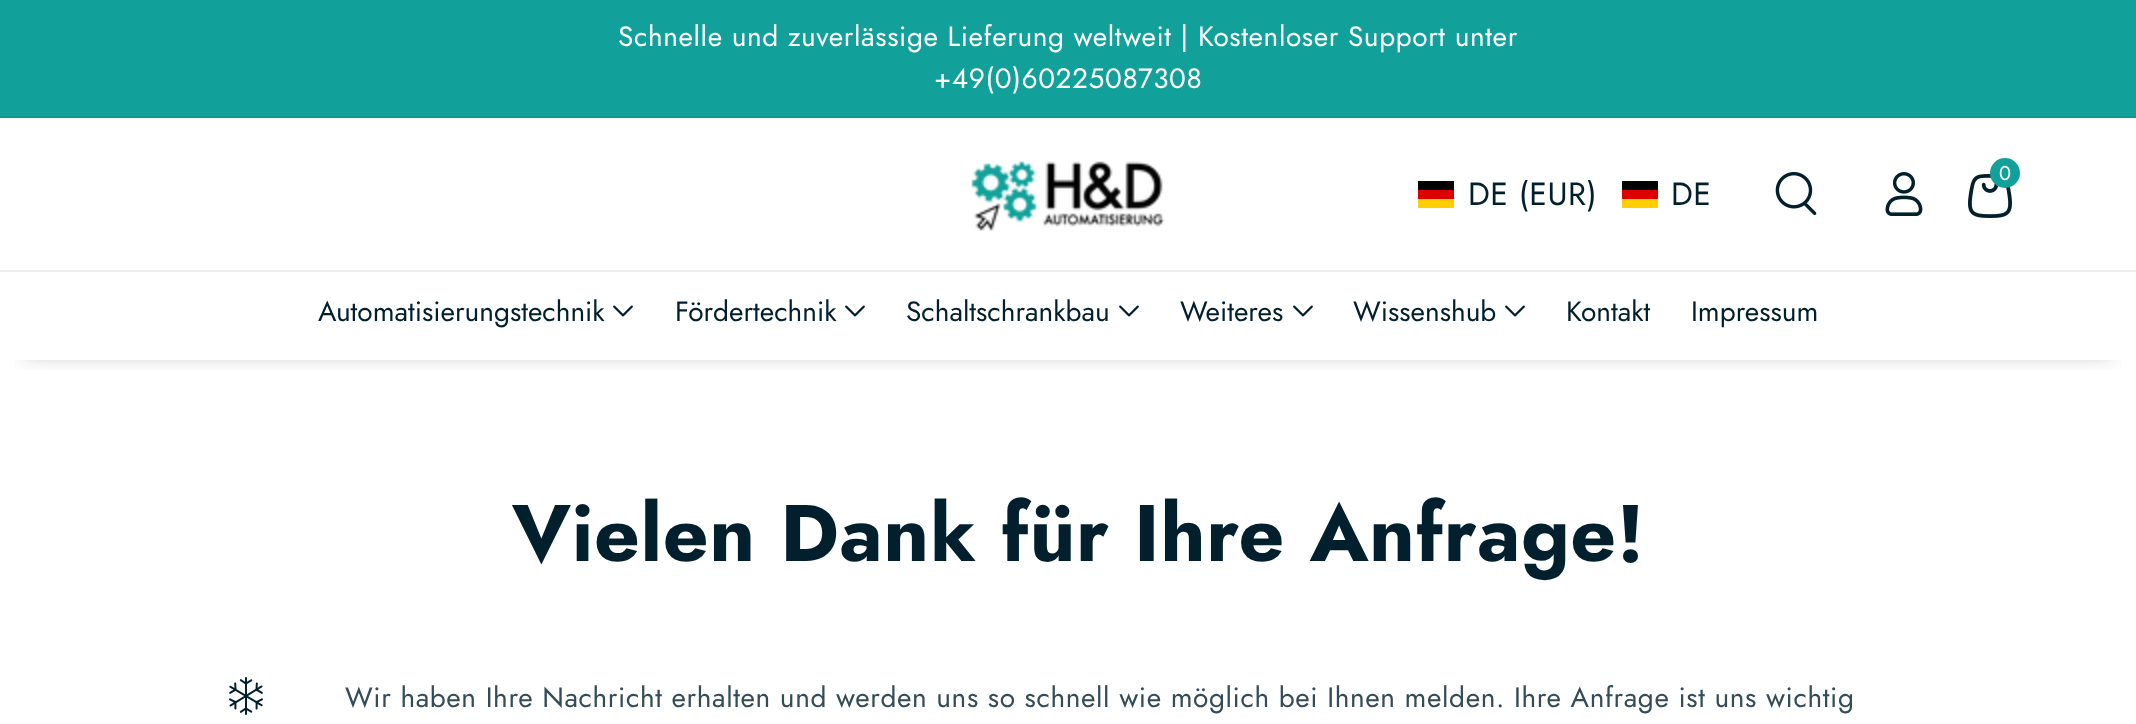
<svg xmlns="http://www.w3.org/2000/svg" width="2136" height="724">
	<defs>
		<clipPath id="clip1"><rect x="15" y="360" width="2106" height="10" /></clipPath>
	</defs>
	<rect width="100%" height="100%" fill="#FFFFFF" />
	<rect x="0" y="0" width="2136" height="116" fill="#12A19A" />
	<rect x="0" y="116" width="2136" height="2" fill="#11968F" />
	<g font-family="Jost" font-size="28" letter-spacing="0.6" fill="#FFFFFF">
		<text x="618" y="46">Schnelle und zuverlässige Lieferung weltweit | Kostenloser Support unter</text>
		<text x="934" y="88">+49(0)60225087308</text>
	</g>
	<g clip-path="url(#clip1)">
		<rect x="24" y="154" width="2088" height="194" fill="#121212" fill-opacity="0.6" filter="blur(12px)" />
	</g>
	<image x="971" y="161" width="194" height="70" href="assets/img1.png" />
	<rect x="1418" y="199" width="36" height="9" fill="#FFCE00" />
	<rect x="1418" y="181" width="36" height="9" fill="#000000" />
	<rect x="1418" y="190" width="36" height="9" fill="#DD0000" />
	<text x="1468" y="205" font-family="Jost" font-size="32" letter-spacing="0.6" fill="#011F2D">DE (EUR)</text>
	<rect x="1622" y="199" width="36" height="9" fill="#FFCE00" />
	<rect x="1622" y="181" width="36" height="9" fill="#000000" />
	<rect x="1622" y="190" width="36" height="9" fill="#DD0000" />
	<text x="1671" y="205" font-family="Jost" font-size="32" letter-spacing="0.6" fill="#011F2D">DE</text>
	<image x="1775" y="172" width="42" height="43" href="assets/img2.png" />
	<image x="1885" y="172" width="38" height="44" href="assets/img3.png" />
	<image x="1968" y="174" width="44" height="44" href="assets/img4.png" />
	<circle cx="2005" cy="173" r="15" fill="#12A19A" />
	<text x="1999" y="180" font-family="Jost" font-size="20" letter-spacing="0.6" fill="#FFFFFF">0</text>
	<rect x="0" y="270" width="2136" height="2" fill="#EDEFF0" />
	<text x="318" y="321" font-family="Jost" font-size="28" fill="#011F2D">Automatisierungstechnik</text>
	<image x="613" y="305" width="20" height="12" href="assets/img5.png" />
	<text x="675" y="321" font-family="Jost" font-size="28" fill="#011F2D">Fördertechnik</text>
	<image x="845" y="305" width="20" height="12" href="assets/img5.png" />
	<text x="906" y="321" font-family="Jost" font-size="28" fill="#011F2D">Schaltschrankbau</text>
	<image x="1119" y="305" width="20" height="12" href="assets/img5.png" />
	<text x="1180" y="321" font-family="Jost" font-size="28" fill="#011F2D">Weiteres</text>
	<image x="1293" y="305" width="20" height="12" href="assets/img5.png" />
	<text x="1353" y="321" font-family="Jost" font-size="28" fill="#011F2D">Wissenshub</text>
	<image x="1505" y="305" width="20" height="12" href="assets/img5.png" />
	<g font-family="Jost" font-size="28" fill="#011F2D">
		<text x="1566" y="321">Kontakt</text>
		<text x="1691" y="321">Impressum</text>
	</g>
	<text x="512" y="561" font-family="Jost" font-size="80" font-weight="700" letter-spacing="0.6" fill="#011F2D">Vielen Dank für Ihre Anfrage!</text>
	<image x="229" y="677" width="34" height="38" href="assets/img6.png" />
	<text x="345" y="707" font-family="Jost" font-size="28" letter-spacing="0.6" fill="#344C57">Wir haben Ihre Nachricht erhalten und werden uns so schnell wie möglich bei Ihnen melden. Ihre Anfrage ist uns wichtig</text>
</svg>
